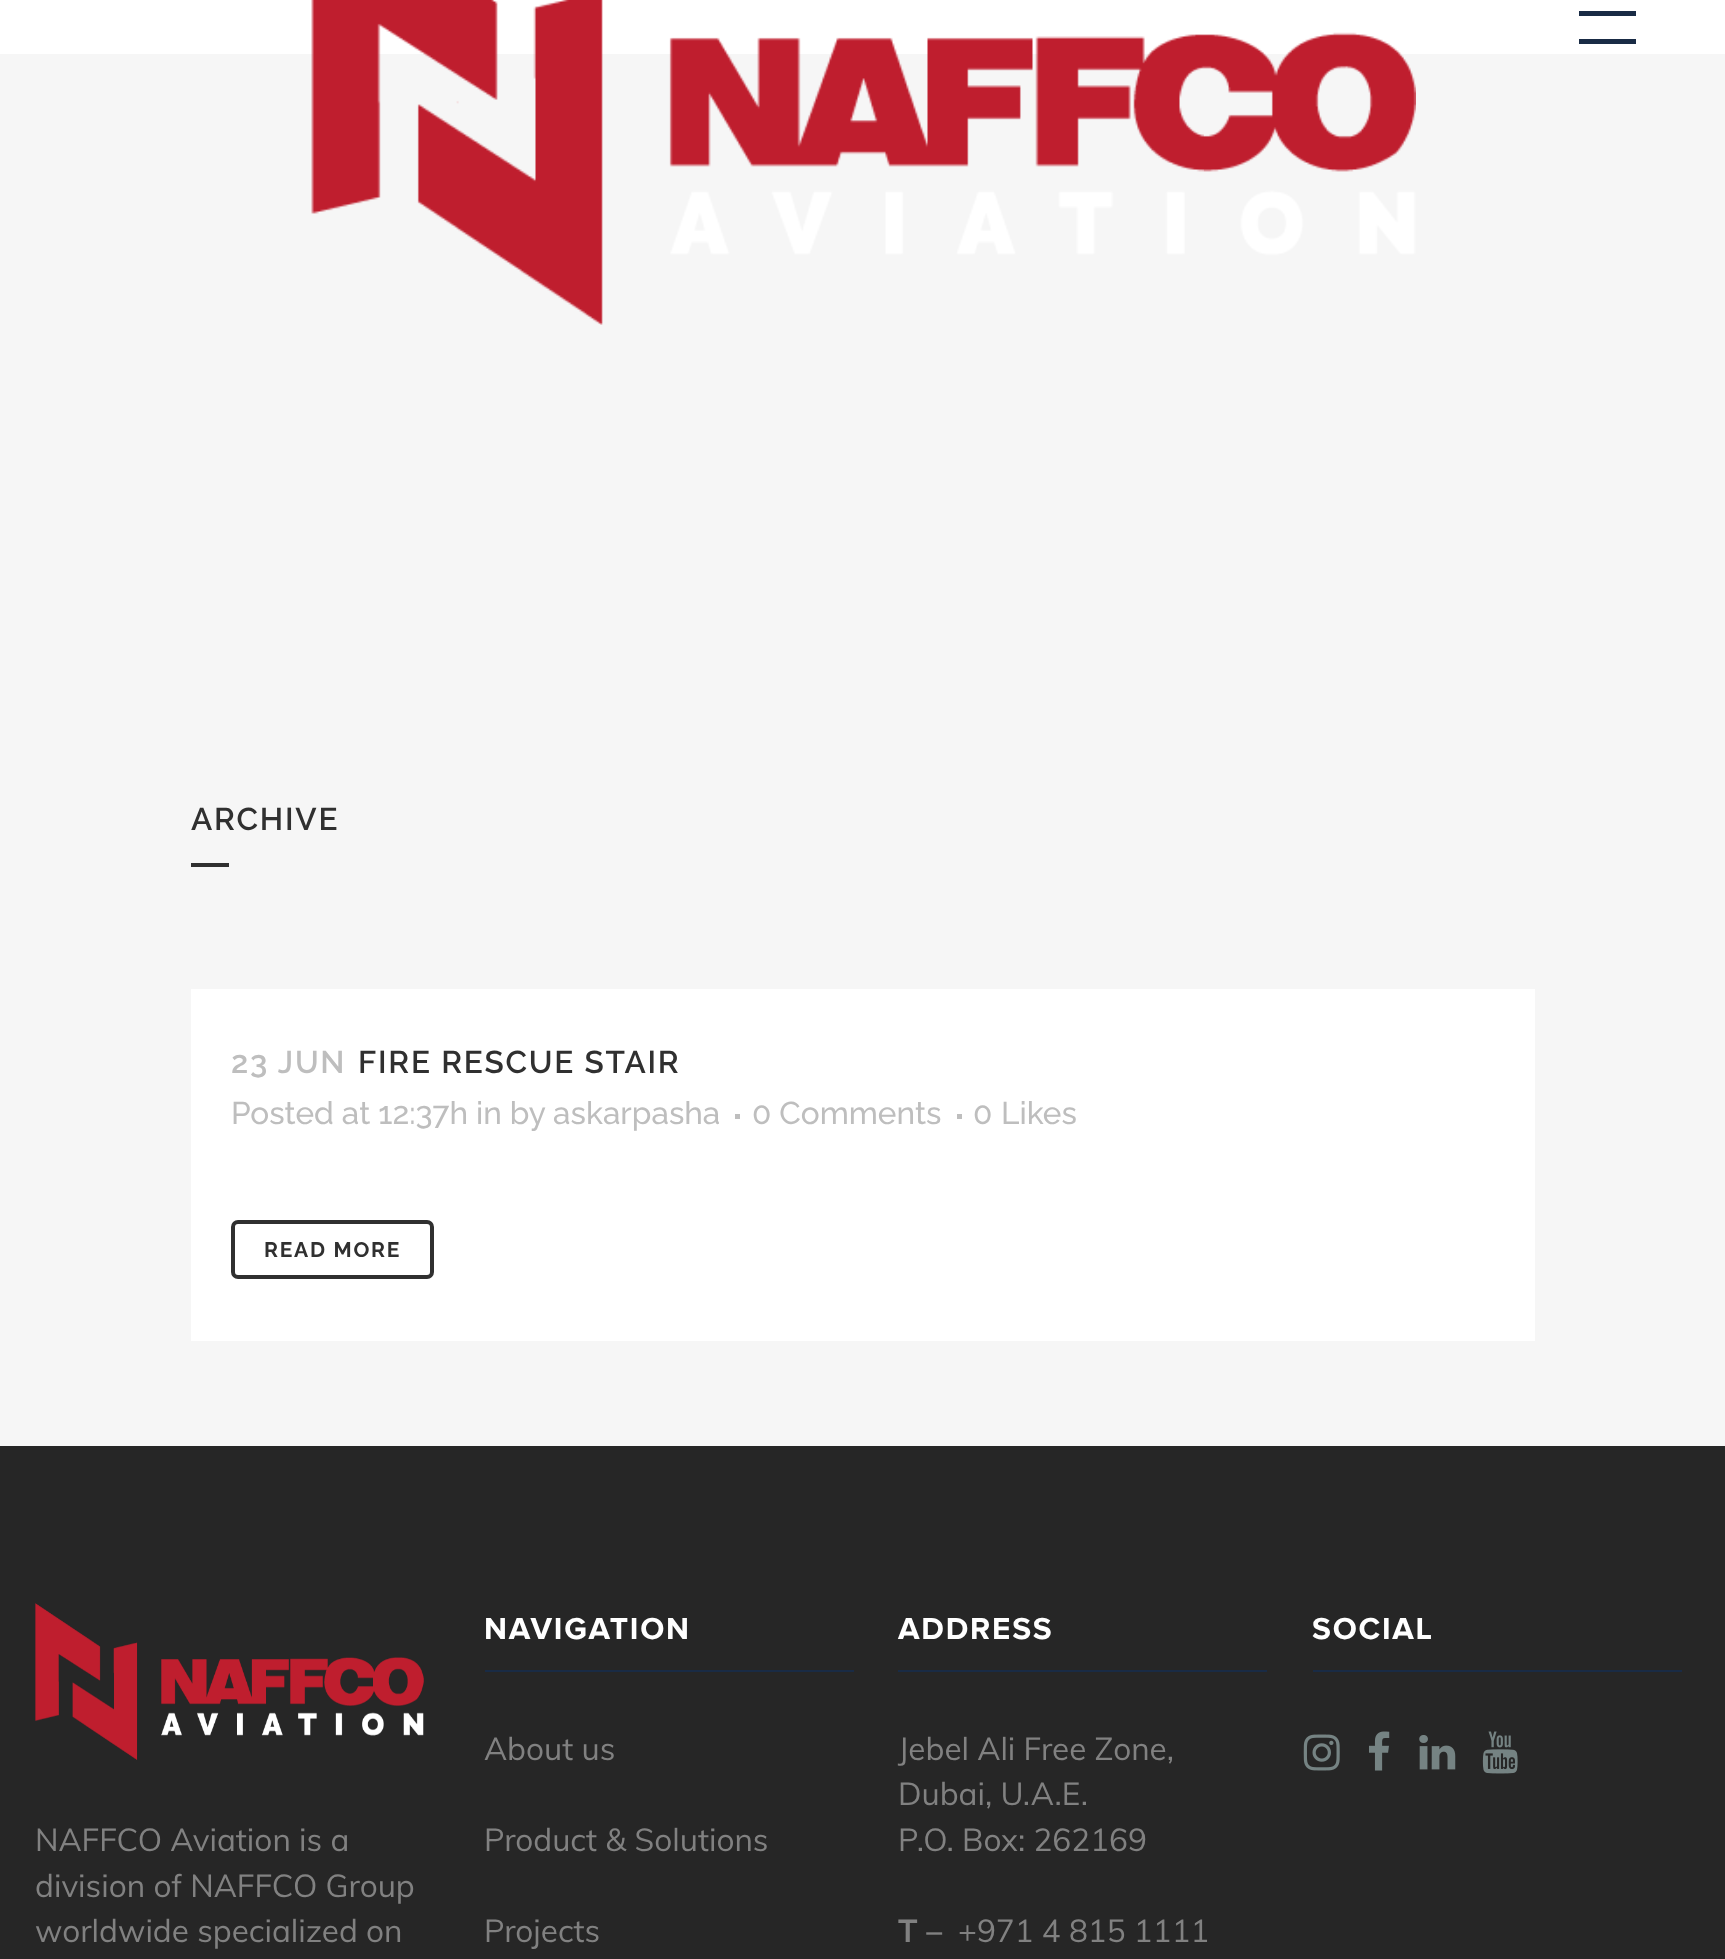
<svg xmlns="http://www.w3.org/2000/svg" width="1725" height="1959">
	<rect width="100%" height="100%" fill="#F6F6F6" />
	<rect x="0" y="0" width="1725" height="54" fill="#FFFFFF" />
	<rect x="1579" y="11" width="57" height="5" fill="#192B45" />
	<rect x="1579" y="39" width="57" height="5" fill="#192B45" />
	<image x="311" y="0" width="1105" height="325" href="assets/img1.png" />
	<text x="191" y="830" font-family="Raleway" font-size="31.5" font-weight="600" letter-spacing="1.75" fill="#303030">ARCHIVE</text>
	<rect x="191" y="863" width="38" height="4" fill="#303030" />
	<rect x="191" y="989" width="1344" height="352" fill="#FFFFFF" />
	<text x="231" y="1073" font-family="Raleway" font-size="31.5" font-weight="600" letter-spacing="1.75" fill="#BEBEBE">23 JUN</text>
	<text x="358" y="1073" font-family="Raleway" font-size="31.5" font-weight="600" letter-spacing="1.75" fill="#303030">FIRE RESCUE STAIR</text>
	<text x="231" y="1124" font-family="Raleway" font-size="31.5" font-weight="500" fill="#BEBEBE">Posted at 12:37h in by askarpasha</text>
	<rect x="735" y="1114" width="5" height="5" fill="#BEBEBE" />
	<text x="752" y="1124" font-family="Raleway" font-size="31.5" font-weight="500" fill="#BEBEBE">0 Comments</text>
	<rect x="957" y="1114" width="5" height="5" fill="#BEBEBE" />
	<g font-family="Raleway" font-size="31.5" font-weight="500" fill="#BEBEBE">
		<text x="973" y="1124">0</text>
		<text x="1001" y="1124">Likes</text>
	</g>
	<rect x="233" y="1222" width="199" height="55" rx="5" fill="none" stroke="#303030" stroke-width="4" />
	<text x="264" y="1257" font-family="Raleway" font-size="21" font-weight="700" letter-spacing="1.75" fill="#303030">READ MORE</text>
	<rect x="0" y="1446" width="1725" height="513" fill="#262626" />
	<text x="484" y="1639" font-family="Proxima Nova" font-size="31.5" font-weight="700" letter-spacing="1.75" fill="#FFFFFF">NAVIGATION</text>
	<rect x="485" y="1670" width="369" height="2" fill="#192B45" />
	<g font-family="Muli" font-size="31.5" fill="#818181">
		<text x="484" y="1760">About us</text>
		<text x="484" y="1851">Product &amp; Solutions</text>
		<text x="484" y="1942">Projects</text>
	</g>
	<text x="898" y="1639" font-family="Proxima Nova" font-size="31.5" font-weight="700" letter-spacing="1.75" fill="#FFFFFF">ADDRESS</text>
	<rect x="898" y="1670" width="369" height="2" fill="#192B45" />
	<g font-family="Muli" font-size="31.5" fill="#818181">
		<text x="898" y="1760">Jebel Ali Free Zone,</text>
		<text x="898" y="1805">Dubai, U.A.E.</text>
		<text x="898" y="1851">P.O. Box: 262169</text>
	</g>
	<text x="898" y="1942" font-family="Muli" font-size="31.5" font-weight="700" fill="#818181">T –</text>
	<text x="958" y="1942" font-family="Muli" font-size="31.5" fill="#818181">+971 4 815 1111</text>
	<text x="1312" y="1639" font-family="Proxima Nova" font-size="31.5" font-weight="700" letter-spacing="1.75" fill="#FFFFFF">SOCIAL</text>
	<rect x="1313" y="1670" width="369" height="2" fill="#192B45" />
	<image x="1303" y="1734" width="37" height="37" href="assets/img2.png" />
	<image x="1369" y="1731" width="21" height="40" href="assets/img3.png" />
	<image x="1419" y="1735" width="37" height="35" href="assets/img4.png" />
	<image x="1482" y="1731" width="36" height="43" href="assets/img5.png" />
	<image x="35" y="1603" width="389" height="157" href="assets/img6.png" />
	<g font-family="Muli" font-size="31.5" fill="#818181">
		<text x="35" y="1851">NAFFCO Aviation is a</text>
		<text x="35" y="1897">division of NAFFCO Group</text>
		<text x="35" y="1942">worldwide specialized on</text>
	</g>
</svg>
